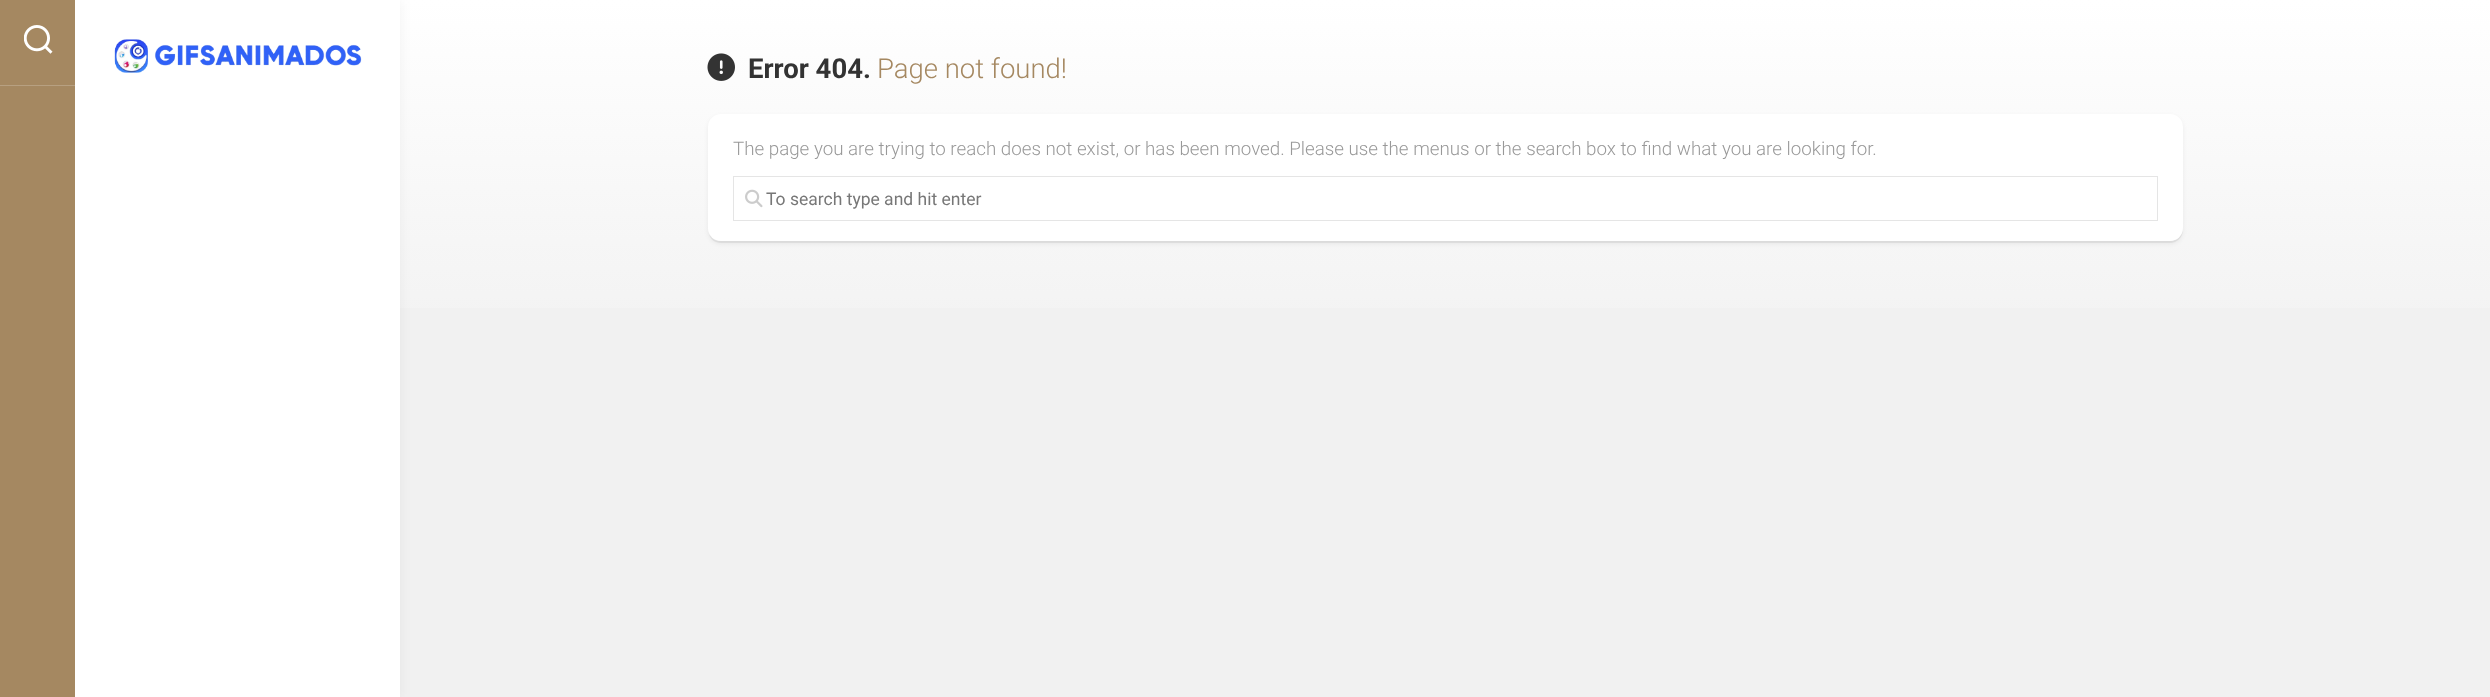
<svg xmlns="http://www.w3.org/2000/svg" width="2490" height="697">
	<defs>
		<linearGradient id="g1" gradientUnits="userSpaceOnUse" x1="1445" y1="0" x2="1445" y2="375"><stop offset="0" stop-color="#FFFFFF" /><stop offset="1" stop-color="#F1F1F1" /></linearGradient>
	</defs>
	<rect width="100%" height="100%" fill="#F1F1F1" />
	<rect x="400" y="0" width="2090" height="308" fill="url(#g1)" />
	<rect x="75" y="0" width="325" height="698" fill="#000000" fill-opacity="0.05" filter="blur(6px)" />
	<rect x="75" y="0" width="325" height="697" fill="#FFFFFF" />
	<rect x="0" y="0" width="75" height="697" fill="#A58861" />
	<rect x="0" y="85" width="75" height="1" fill="#B7A081" />
	<image x="24" y="25" width="29" height="29" href="assets/img1.png" />
	<image x="114" y="39" width="248" height="34" href="assets/img2.png" />
	<image x="707" y="53" width="28" height="28" href="assets/img3.png" />
	<text x="748" y="78" font-family="Roboto" font-size="27.5" font-weight="700" fill="#333333">Error 404.</text>
	<text x="877" y="78" font-family="Roboto" font-size="27.5" font-weight="300" fill="#A58861">Page not found!</text>
	<rect x="708" y="116" width="1475" height="128" rx="13" fill="#000000" fill-opacity="0.06" filter="blur(2px)" />
	<path d="M709 234C710 239 715 243 721 243H2170C2177 243 2183 237 2183 230V128L2182 123V229C2182 236 2177 241 2170 241H720C715 241 711 238 709 234Z" fill="#000000" fill-opacity="0.06" />
	<rect x="708" y="114" width="1475" height="127" rx="13" fill="#FFFFFF" />
	<text x="733" y="155" font-family="Roboto" font-size="18.75" font-weight="300" fill="#999999">The page you are trying to reach does not exist, or has been moved. Please use the menus or the search box to find what you are looking for.</text>
	<rect x="733.5" y="176.5" width="1424" height="44" fill="none" stroke="#E5E5E5" />
	<image x="745" y="189" width="18" height="19" href="assets/img4.png" />
	<text x="766" y="205" font-family="Roboto" font-size="17.5" fill="#777777">To search type and hit enter</text>
</svg>
